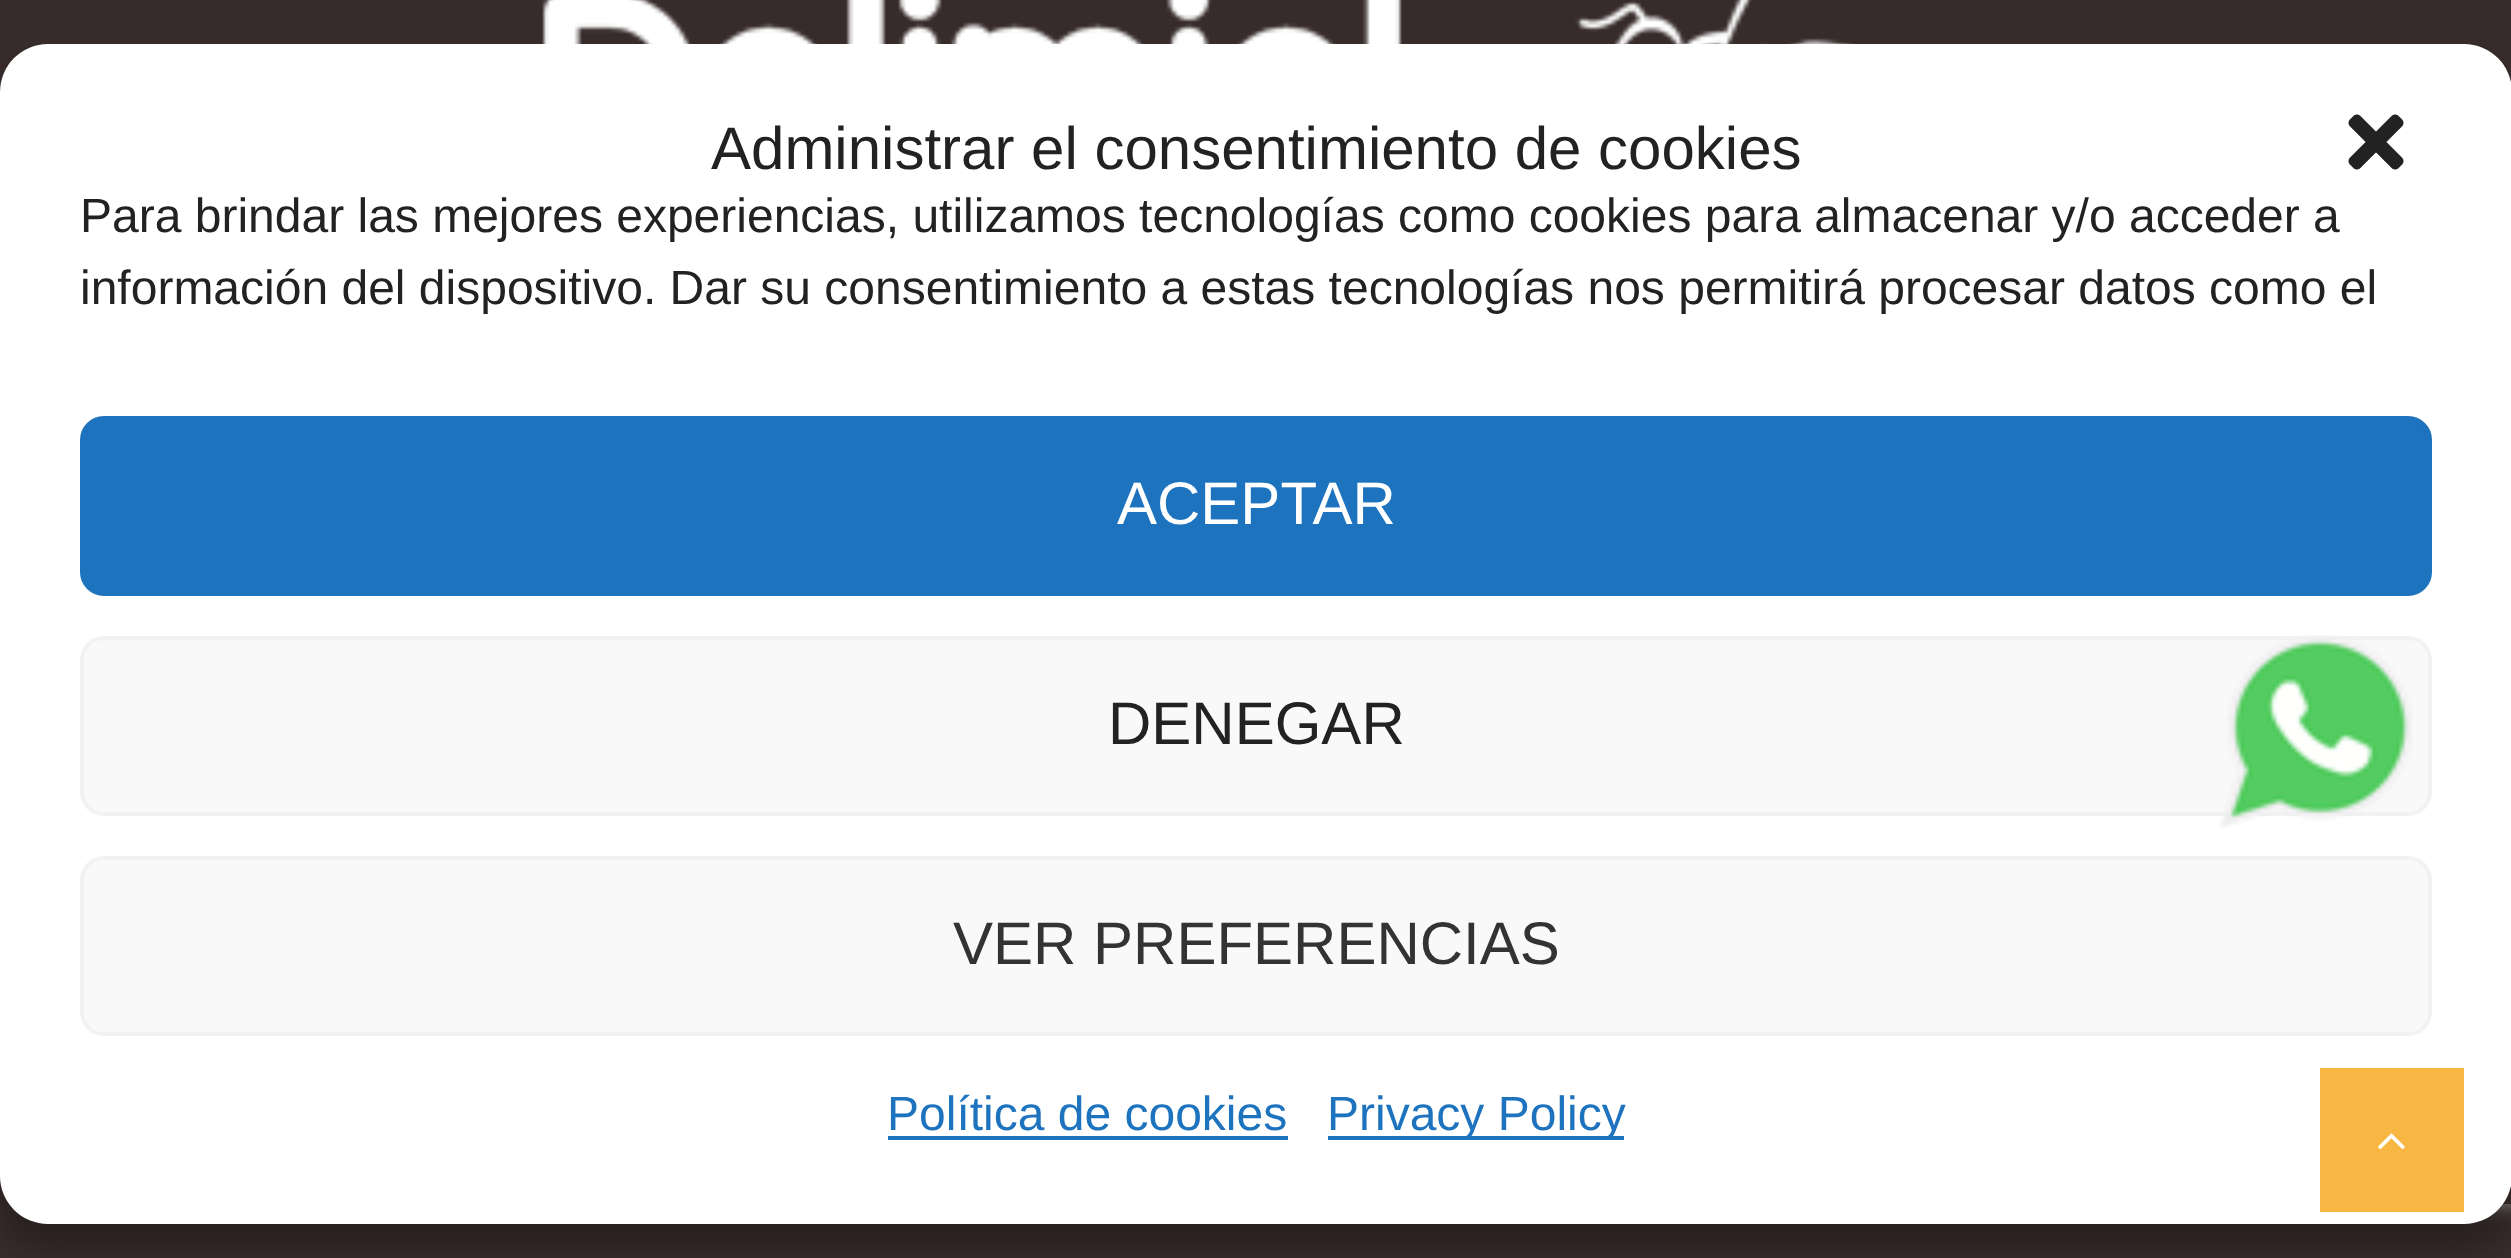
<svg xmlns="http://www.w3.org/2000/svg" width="2511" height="1258">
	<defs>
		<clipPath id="clip1"><rect x="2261" y="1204" width="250" height="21" /></clipPath>
	</defs>
	<rect width="100%" height="100%" fill="#372B2B" />
	<image x="542" y="0" width="1313" height="44" href="assets/img1.png" />
	<rect x="0" y="68" width="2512" height="1180" rx="48" fill="#000000" fill-opacity="0.23" filter="blur(12px)" />
	<g clip-path="url(#clip1)">
		<rect x="2232" y="964" width="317" height="240" rx="8" fill="#808080" filter="blur(10px)" />
	</g>
	<rect x="0" y="44" width="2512" height="1180" rx="48" fill="#FFFFFF" />
	<text x="711" y="169" font-family="Arimo" font-size="60" fill="#222222">Administrar el consentimiento de cookies</text>
	<image x="2348" y="114" width="56" height="56" href="assets/img2.png" />
	<g font-family="Arimo" font-size="48" fill="#222222">
		<text x="80" y="232">Para brindar las mejores experiencias, utilizamos tecnologías como cookies para almacenar y/o acceder a</text>
		<text x="80" y="304">información del dispositivo. Dar su consentimiento a estas tecnologías nos permitirá procesar datos como el</text>
	</g>
	<rect x="82" y="418" width="2348" height="176" rx="22" fill="#1E73BE" stroke="#1E73BE" stroke-width="4" />
	<text x="1117" y="524" font-family="Arimo" font-size="60" fill="#FFFFFF">ACEPTAR</text>
	<rect x="82" y="638" width="2348" height="176" rx="22" fill="#F9F9F9" stroke="#F2F2F2" stroke-width="4" />
	<text x="1108" y="744" font-family="Arimo" font-size="60" fill="#222222">DENEGAR</text>
	<rect x="82" y="858" width="2348" height="176" rx="22" fill="#F9F9F9" stroke="#F2F2F2" stroke-width="4" />
	<text x="953" y="964" font-family="Arimo" font-size="60" fill="#333333">VER PREFERENCIAS</text>
	<text x="887" y="1130" font-family="Arimo" font-size="48" fill="#1E73BE">Política de cookies</text>
	<rect x="888" y="1136" width="400" height="4" fill="#1E73BE" />
	<rect x="1328" y="1136" width="296" height="4" fill="#1E73BE" />
	<text x="1327" y="1130" font-family="Arimo" font-size="48" fill="#1E73BE">Privacy Policy</text>
	<image x="2219" y="635" width="194" height="193" href="assets/img3.png" />
	<rect x="2320" y="1068" width="144" height="144" fill="#F8B742" />
	<image x="2378" y="1133" width="27" height="17" href="assets/img4.png" />
</svg>
